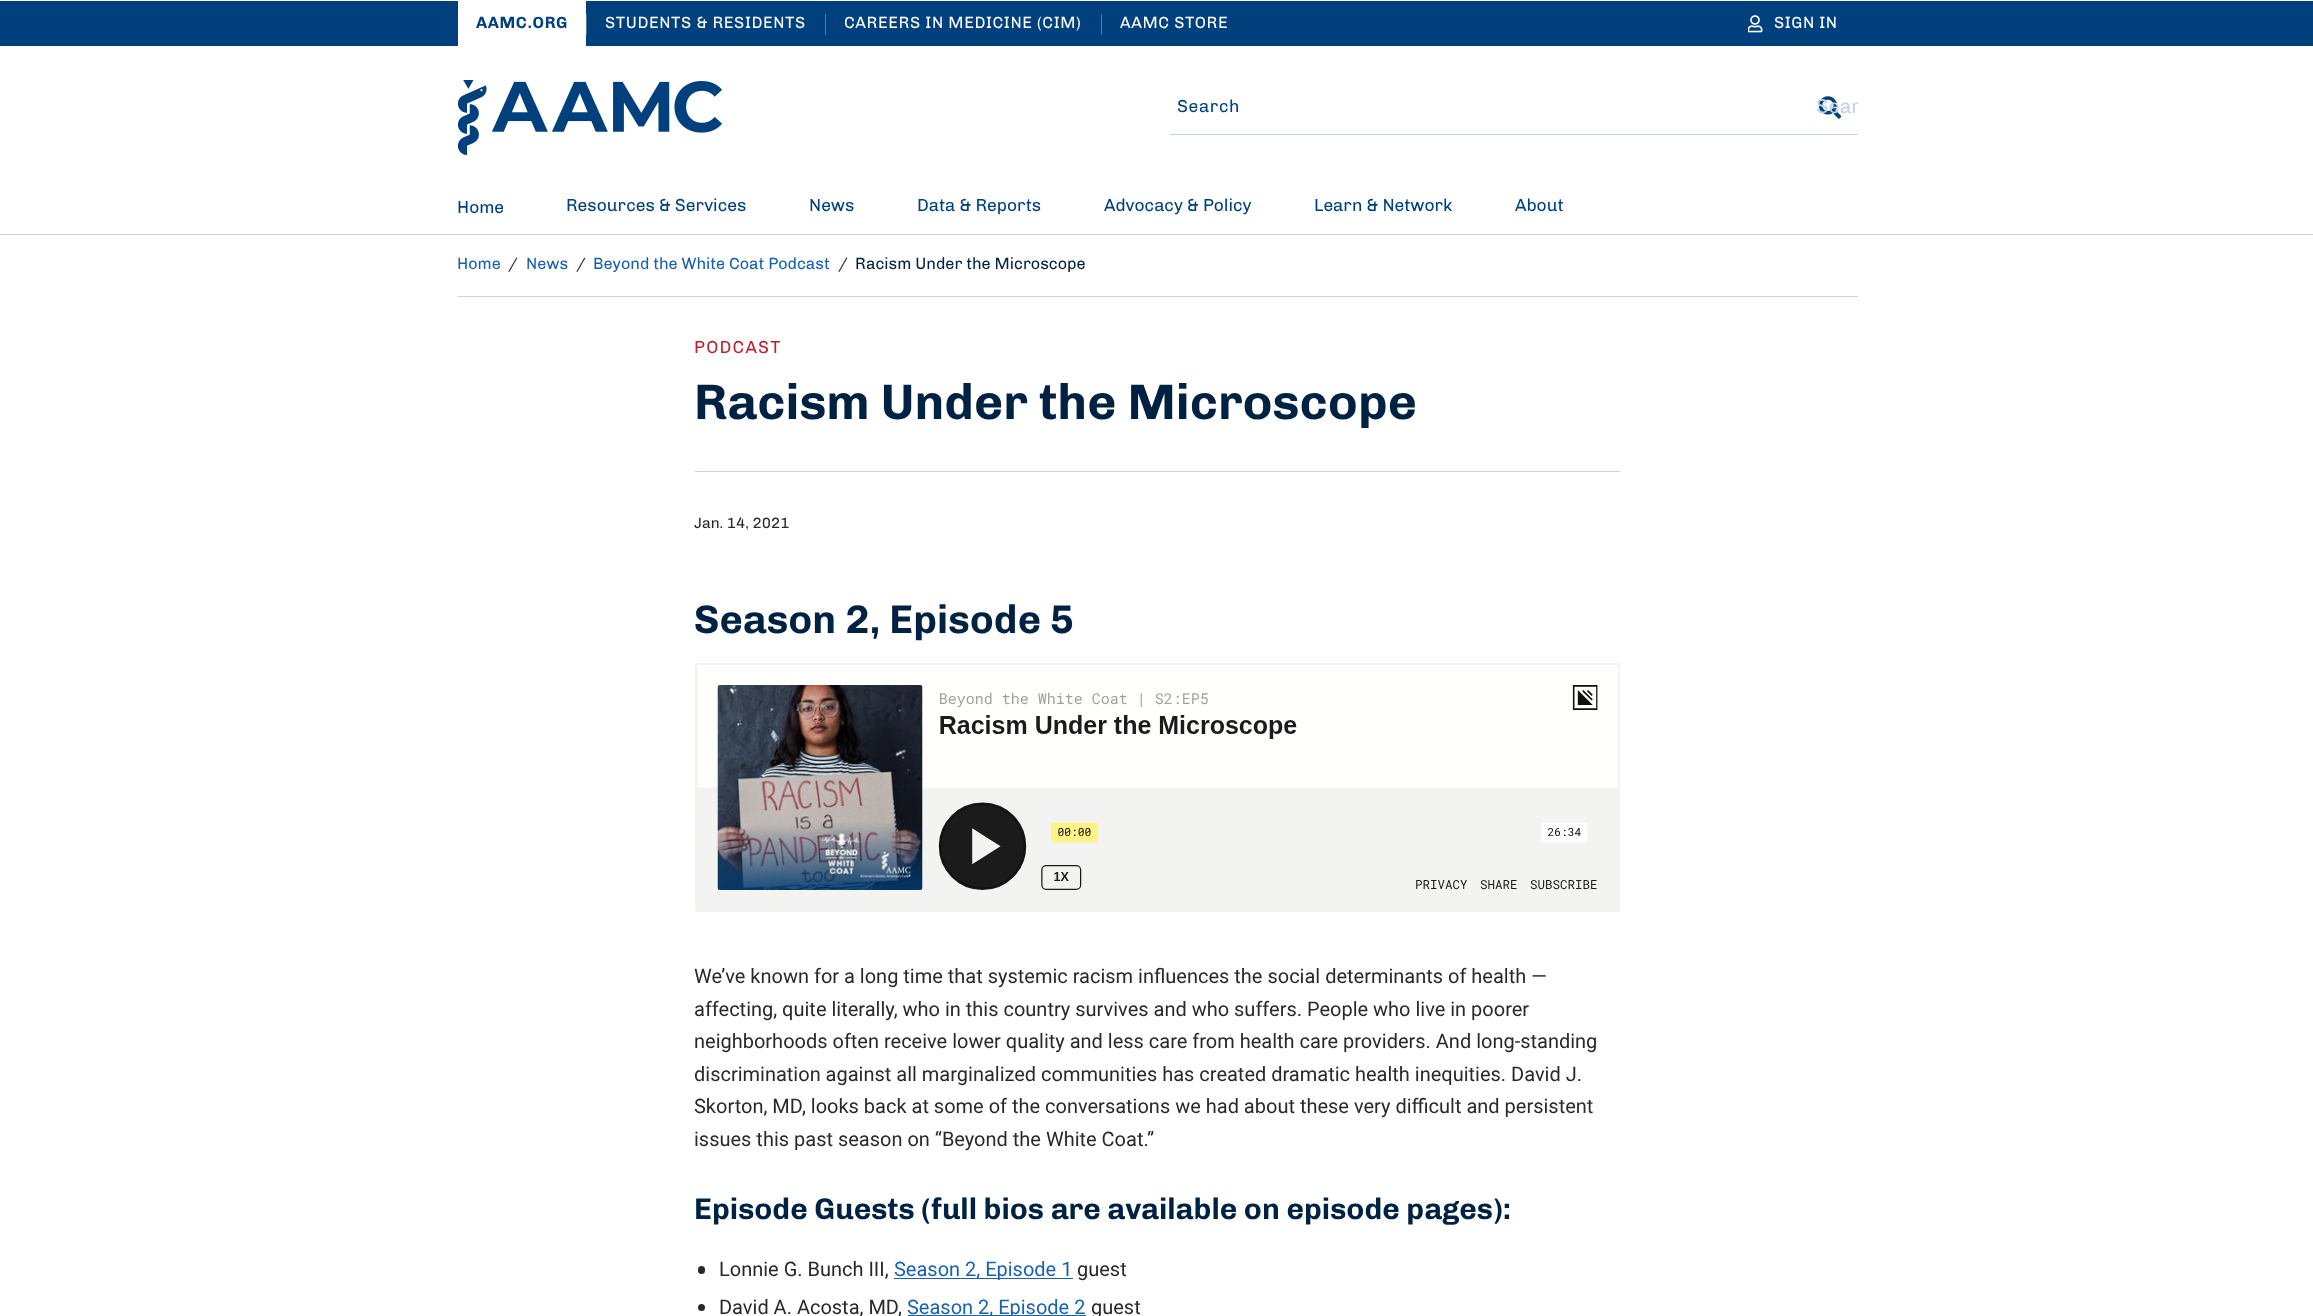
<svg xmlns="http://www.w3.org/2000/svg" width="2313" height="1316">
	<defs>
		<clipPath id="clip1"><rect x="1803" y="80" width="55" height="55" rx="6" /></clipPath>
	</defs>
	<rect width="100%" height="100%" fill="#FFFFFF" />
	<rect x="0" y="1" width="2313" height="45" fill="#00417D" />
	<rect x="458" y="1" width="128" height="45" fill="#FFFFFF" />
	<text x="476" y="28" font-family="Chivo" font-size="16.25" font-weight="700" letter-spacing="0.6" fill="#00417D">AAMC.ORG</text>
	<rect x="586" y="14" width="1" height="21" fill="#4D7AA4" />
	<text x="605" y="28" font-family="Chivo" font-size="16.25" letter-spacing="0.6" fill="#FFFFFF">STUDENTS &amp; RESIDENTS</text>
	<rect x="825" y="14" width="1" height="21" fill="#4D7AA4" />
	<text x="844" y="28" font-family="Chivo" font-size="16.25" letter-spacing="0.6" fill="#FFFFFF">CAREERS IN MEDICINE (CIM)</text>
	<rect x="1101" y="14" width="1" height="21" fill="#4D7AA4" />
	<text x="1120" y="28" font-family="Chivo" font-size="16.25" letter-spacing="0.6" fill="#FFFFFF">AAMC STORE</text>
	<image x="1748" y="15" width="15" height="18" href="assets/img1.png" />
	<text x="1774" y="28" font-family="Chivo" font-size="16.25" letter-spacing="0.6" fill="#FFFFFF">SIGN IN</text>
	<image x="458" y="80" width="264" height="75" href="assets/img2.png" />
	<rect x="1170" y="134" width="688" height="1" fill="#C8D3E1" />
	<text x="1177" y="112" font-family="Chivo" font-size="17.5" letter-spacing="0.6" fill="#00417D">Search</text>
	<image x="1819" y="96" width="22" height="23" href="assets/img3.png" />
	<g clip-path="url(#clip1)">
		<text x="1816" y="113" font-family="Chivo" font-size="20" fill="#C2D2E0">Sear</text>
	</g>
	<rect x="0" y="234" width="2313" height="1" fill="#C8D3E1" />
	<g font-family="Chivo" font-size="17.5" fill="#00417D">
		<text x="457" y="213">Home</text>
		<text x="566" y="211">Resources &amp; Services</text>
		<text x="809" y="211">News</text>
		<text x="917" y="211">Data &amp; Reports</text>
		<text x="1104" y="211">Advocacy &amp; Policy</text>
		<text x="1314" y="211">Learn &amp; Network</text>
		<text x="1515" y="211">About</text>
	</g>
	<rect x="458" y="296" width="1400" height="1" fill="#C8D3E1" />
	<text x="457" y="269" font-family="Chivo" font-size="16.25" fill="#1961AE">Home</text>
	<text x="508" y="269" font-family="Chivo" font-size="16.25" fill="#292929">/</text>
	<text x="526" y="269" font-family="Chivo" font-size="16.25" fill="#1961AE">News</text>
	<text x="576" y="269" font-family="Chivo" font-size="16.25" fill="#292929">/</text>
	<text x="593" y="269" font-family="Chivo" font-size="16.25" fill="#1961AE">Beyond the White Coat Podcast</text>
	<text x="838" y="269" font-family="Chivo" font-size="16.25" fill="#292929">/</text>
	<text x="855" y="269" font-family="Chivo" font-size="16.25" fill="#002242">Racism Under the Microscope</text>
	<rect x="695" y="471" width="925" height="1" fill="#C8D3E1" />
	<text x="694" y="353" font-family="Chivo" font-size="17.5" letter-spacing="1.25" fill="#C01E31">PODCAST</text>
	<text x="694" y="419" font-family="Chivo" font-size="50" font-weight="700" fill="#002242">Racism Under the Microscope</text>
	<text x="694" y="528" font-family="Chivo" font-size="15" fill="#292929">Jan. 14, 2021</text>
	<text x="694" y="633" font-family="Chivo" font-size="40" font-weight="700" fill="#002242">Season 2, Episode 5</text>
	<image x="695" y="663" width="925" height="249" href="assets/img4.png" />
	<g font-family="Roboto" font-size="20" fill="#292929">
		<text x="694" y="983">We’ve known for a long time that systemic racism influences the social determinants of health —</text>
		<text x="694" y="1016">affecting, quite literally, who in this country survives and who suffers. People who live in poorer</text>
		<text x="694" y="1048">neighborhoods often receive lower quality and less care from health care providers. And long-standing</text>
		<text x="694" y="1081">discrimination against all marginalized communities has created dramatic health inequities. David J.</text>
		<text x="694" y="1113">Skorton, MD, looks back at some of the conversations we had about these very difficult and persistent</text>
		<text x="694" y="1146">issues this past season on “Beyond the White Coat.”</text>
	</g>
	<text x="694" y="1219" font-family="Chivo" font-size="30" font-weight="700" fill="#002242">Episode Guests (full bios are available on episode pages):</text>
	<rect x="698" y="1266" width="7" height="8" rx="3.5" fill="#292929" />
	<text x="719" y="1276" font-family="Roboto" font-size="20" fill="#292929">Lonnie G. Bunch III,</text>
	<rect x="894" y="1278" width="179" height="1" fill="#1961AE" />
	<text x="894" y="1276" font-family="Roboto" font-size="20" fill="#1961AE">Season 2, Episode 1</text>
	<text x="1077" y="1276" font-family="Roboto" font-size="20" fill="#292929">guest</text>
	<circle cx="701.5" cy="1307.5" r="3.5" fill="#292929" />
	<text x="719" y="1314" font-family="Roboto" font-size="20" fill="#292929">David A. Acosta, MD,</text>
	<rect x="908" y="1315" width="178" height="1" fill="#1961AE" />
	<text x="907" y="1314" font-family="Roboto" font-size="20" fill="#1961AE">Season 2, Episode 2</text>
	<text x="1091" y="1314" font-family="Roboto" font-size="20" fill="#292929">guest</text>
</svg>
